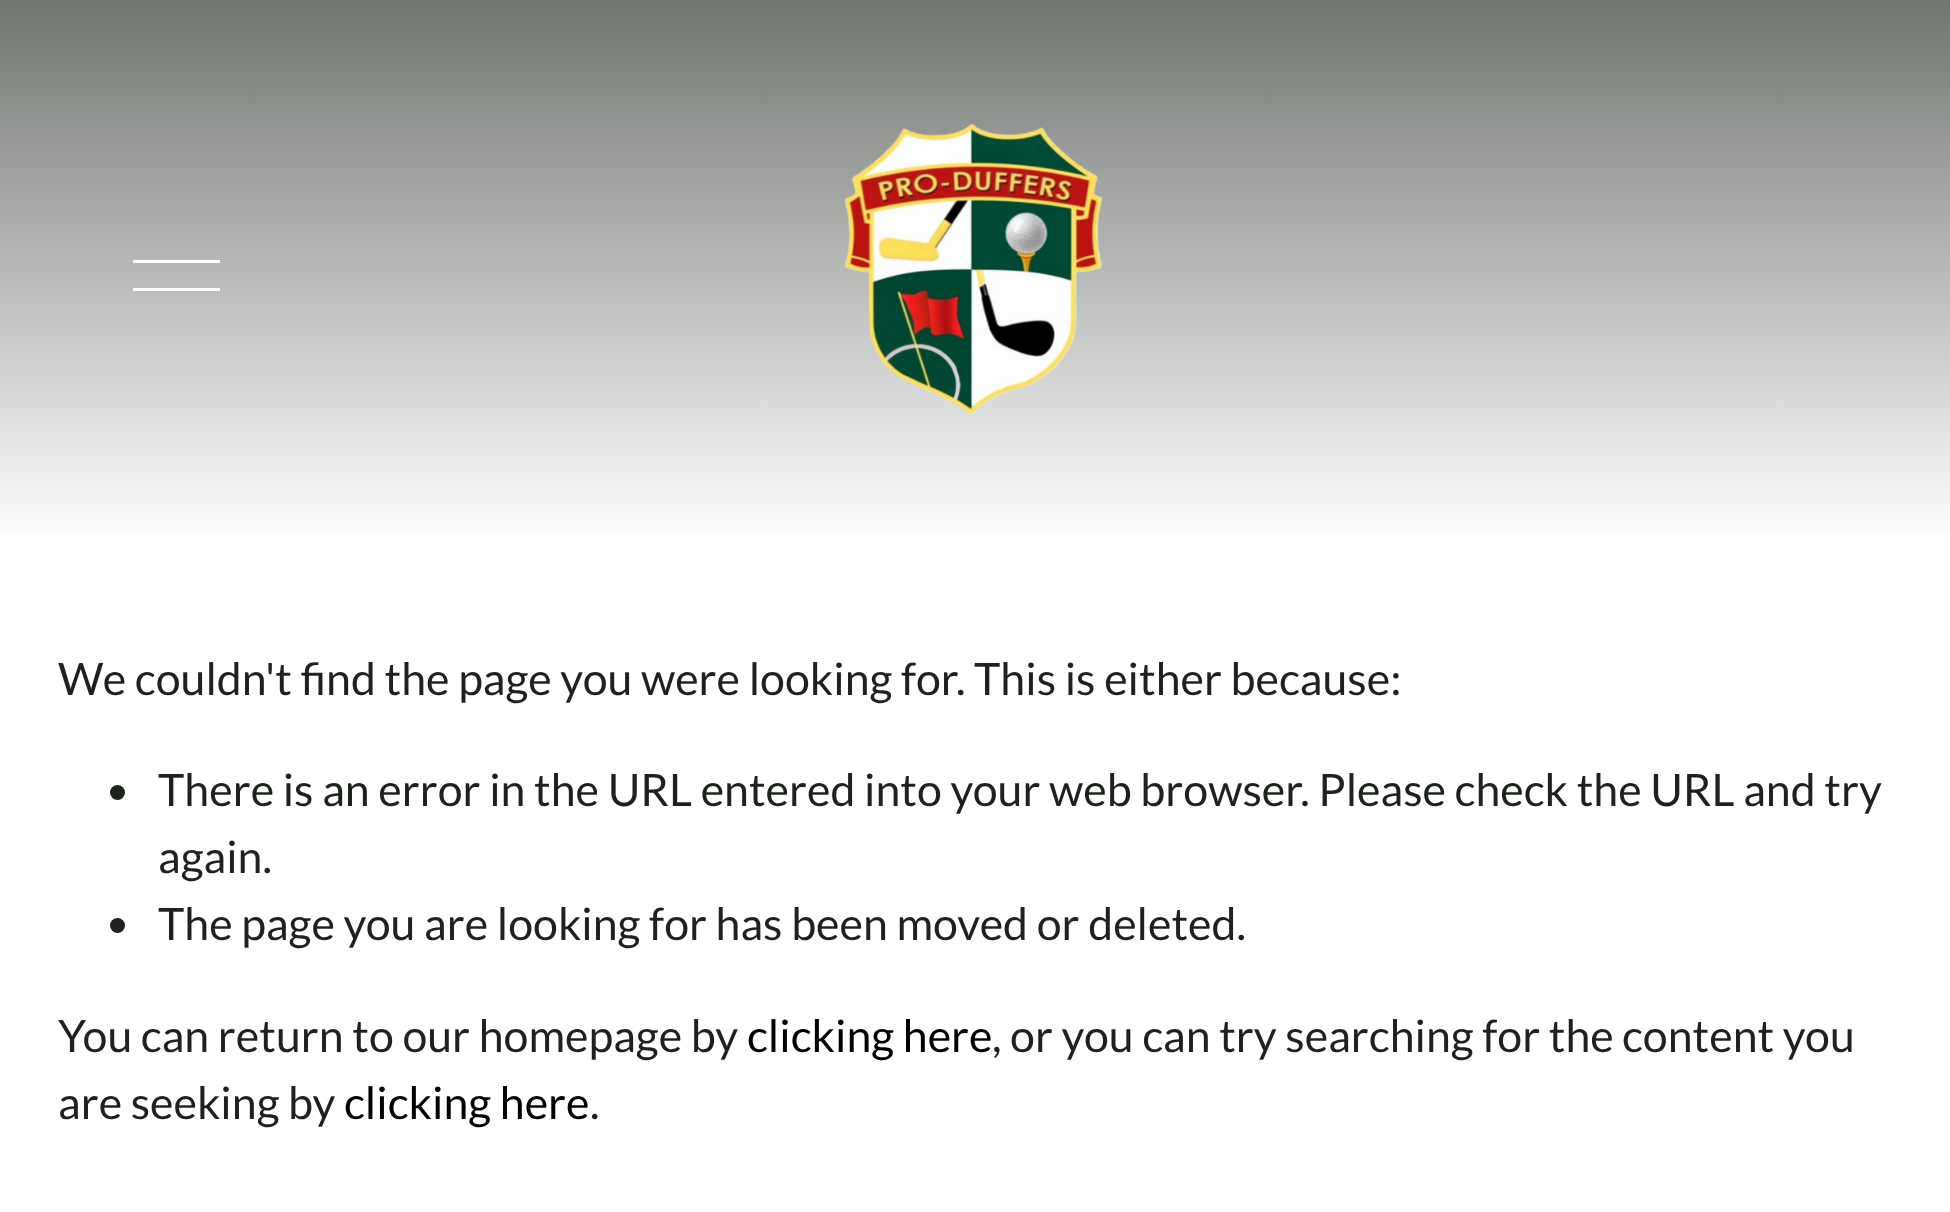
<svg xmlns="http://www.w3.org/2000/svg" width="1950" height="1212">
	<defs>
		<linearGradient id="g1" gradientUnits="userSpaceOnUse" x1="975" y1="0" x2="975" y2="545"><stop offset="0" stop-color="#717570" /><stop offset="1" stop-color="#FFFFFF" /></linearGradient>
	</defs>
	<rect width="100%" height="100%" fill="#FFFFFF" />
	<rect x="0" y="0" width="1950" height="535" fill="url(#g1)" />
	<rect x="133" y="260" width="87" height="3" fill="#FFFFFF" />
	<rect x="133" y="288" width="87" height="3" fill="#FFFFFF" />
	<image x="844" y="124" width="259" height="291" href="assets/img1.png" />
	<text x="58" y="695" font-family="Lato" font-size="44.7" fill="#1D231C">We couldn't find the page you were looking for. This is either because:</text>
	<circle cx="117.5" cy="792.5" r="7.5" fill="#1D231C" />
	<g font-family="Lato" font-size="44.7" fill="#1D231C">
		<text x="158" y="806">There is an error in the URL entered into your web browser. Please check the URL and try</text>
		<text x="158" y="873">again.</text>
	</g>
	<circle cx="117.5" cy="925.5" r="7.5" fill="#1D231C" />
	<g font-family="Lato" font-size="44.7" fill="#1D231C">
		<text x="158" y="940">The page you are looking for has been moved or deleted.</text>
		<text x="58" y="1052">You can return to our homepage by</text>
	</g>
	<text x="747" y="1052" font-family="Lato" font-size="44.7" fill="#000000">clicking here</text>
	<g font-family="Lato" font-size="44.7" fill="#1D231C">
		<text x="992" y="1052">, or you can try searching for the</text>
		<text x="1622" y="1052">content you</text>
		<text x="58" y="1119">are seeking by</text>
	</g>
	<text x="344" y="1119" font-family="Lato" font-size="44.7" fill="#000000">clicking here</text>
	<text x="590" y="1119" font-family="Lato" font-size="44.7" fill="#1D231C">.</text>
</svg>
